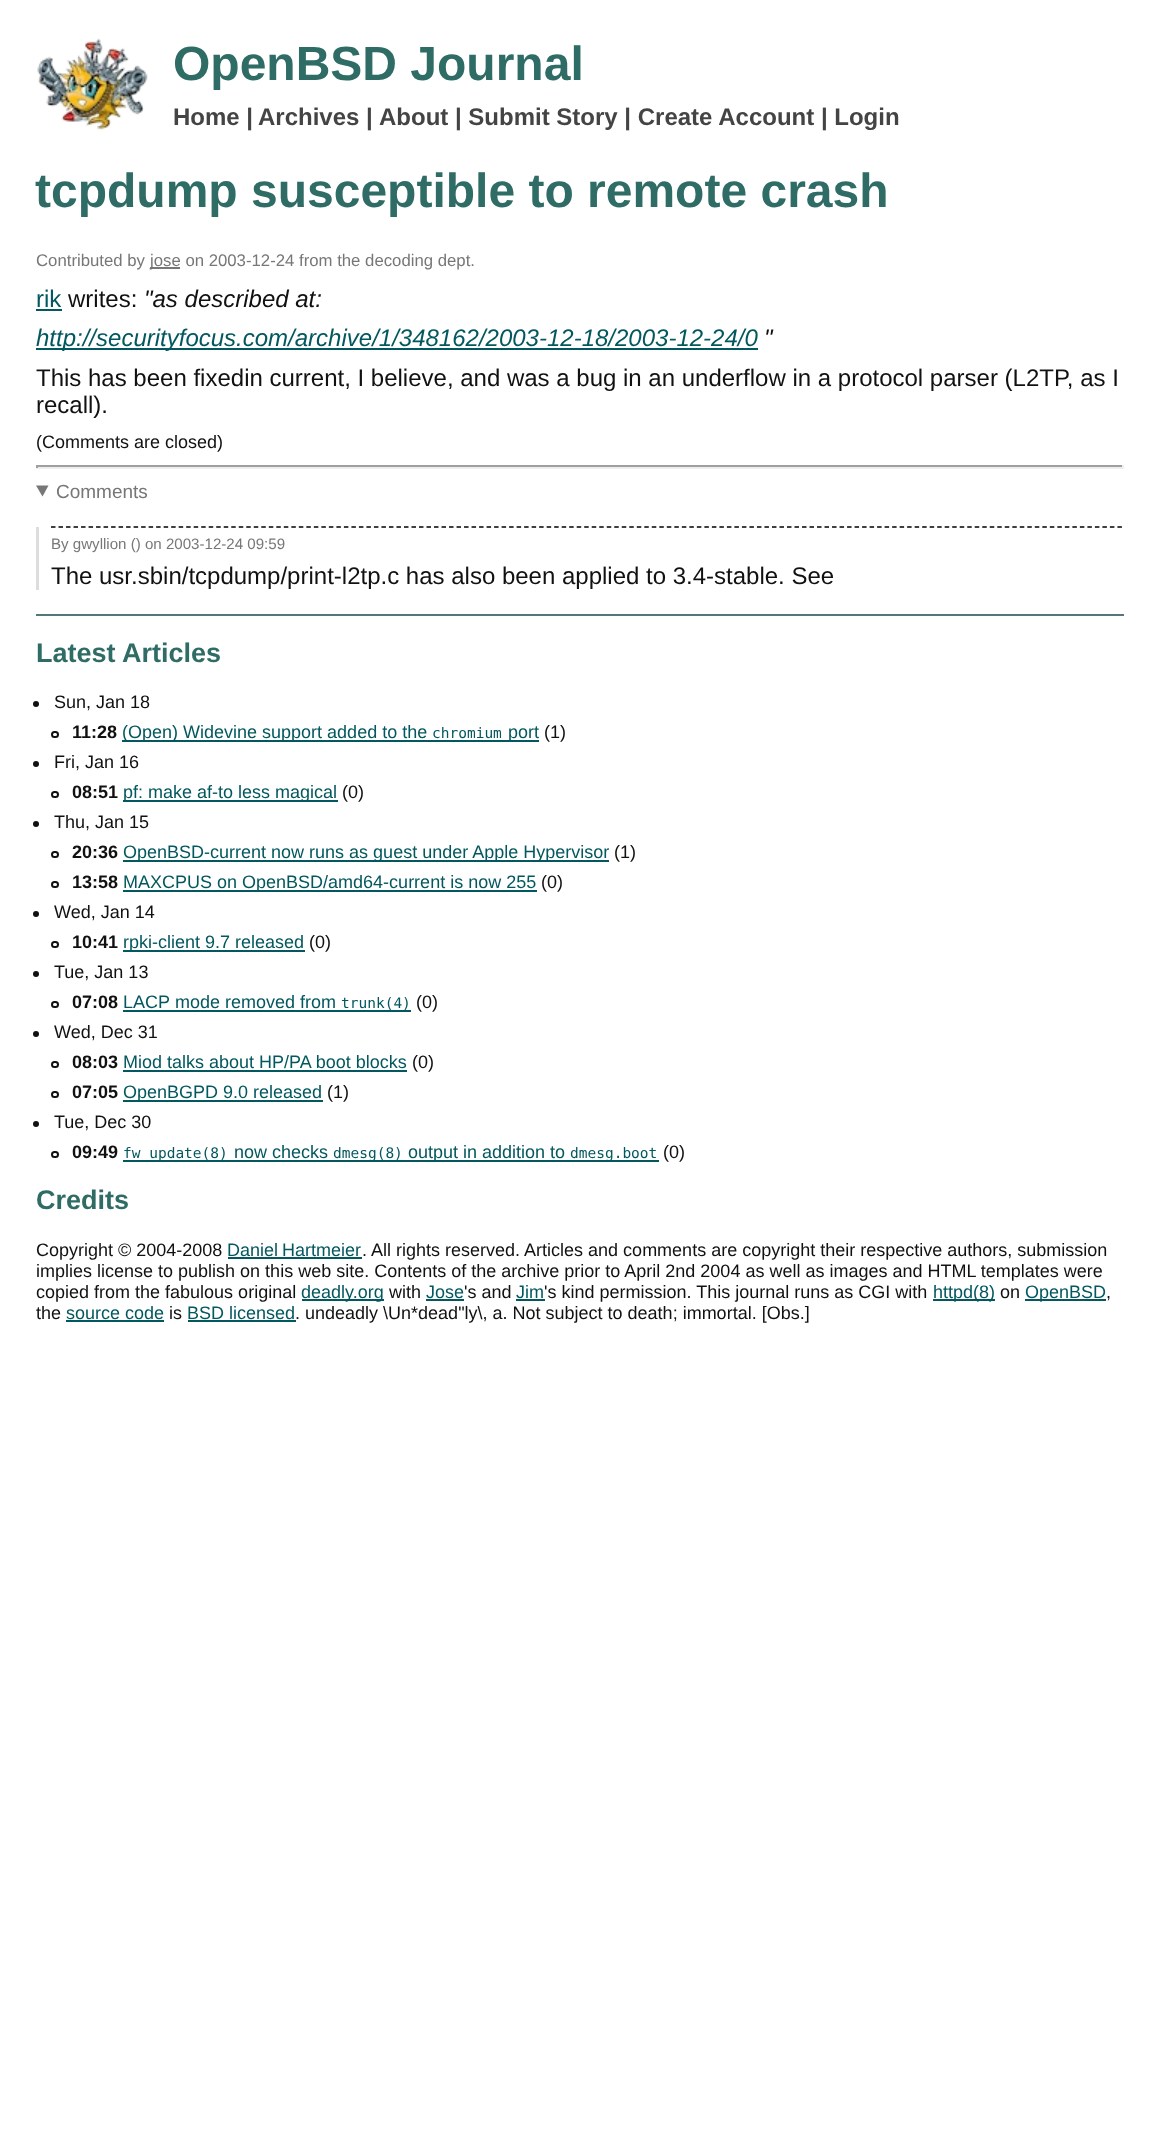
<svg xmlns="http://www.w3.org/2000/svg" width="1159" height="2132">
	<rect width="100%" height="100%" fill="#FFFFFF" />
	<image x="37" y="38" width="112" height="92" href="assets/img1.png" />
	<text x="173" y="80" font-family="Liberation Sans" font-size="48" font-weight="700" fill="#2E6C65">OpenBSD Journal</text>
	<g font-family="Liberation Sans" font-size="24" font-weight="700" fill="#444444">
		<text x="173" y="125">Home |</text>
		<text x="258" y="125">Archives |</text>
		<text x="379" y="125">About | Submit Story | Create Account | Login</text>
	</g>
	<text x="35" y="207" font-family="Liberation Sans" font-size="48" font-weight="700" fill="#2E6C65">tcpdump susceptible to remote crash</text>
	<text x="36" y="266" font-family="Liberation Sans" font-size="16.75" fill="#777777">Contributed by</text>
	<rect x="150" y="267" width="30" height="2" fill="#777777" />
	<text x="150" y="266" font-family="Liberation Sans" font-size="16.75" fill="#777777">jose on 2003-12-24 from the decoding dept.</text>
	<text x="36" y="307" font-family="Liberation Sans" font-size="24" fill="#03585F">rik</text>
	<rect x="36" y="309" width="26" height="2" fill="#03585F" />
	<text x="68" y="307" font-family="Liberation Sans" font-size="24" fill="#111111">writes:</text>
	<text x="144" y="307" font-family="Liberation Sans" font-size="24" font-style="italic" fill="#111111">"as described at:</text>
	<rect x="36" y="348" width="722" height="2" fill="#03585F" />
	<text x="36" y="346" font-family="Liberation Sans" font-size="24" font-style="italic" fill="#03585F">http://securityfocus.com/archive/1/348162/2003-12-18/2003-12-24/0</text>
	<text x="764" y="346" font-family="Liberation Sans" font-size="24" font-style="italic" fill="#111111">"</text>
	<g font-family="Liberation Sans" font-size="24" fill="#111111">
		<text x="36" y="386">This has been fixedin current, I believe, and was a bug in an underflow in a protocol parser (L2TP, as I</text>
		<text x="36" y="413">recall).</text>
	</g>
	<text x="36" y="448" font-family="Liberation Sans" font-size="18" fill="#111111">(Comments are closed)</text>
	<rect x="36" y="465" width="1088" height="2" fill="#9F9F9F" />
	<rect x="1122" y="465" width="2" height="3" fill="#EEEEEE" />
	<rect x="36" y="467" width="1088" height="2" fill="#EEEEEE" />
	<rect x="36" y="465" width="2" height="3" fill="#9F9F9F" />
	<path d="M36 485.5H48.5L42.5 496.5Z" fill="#777777" />
	<text x="56" y="498" font-family="Liberation Sans" font-size="19" fill="#777777">Comments</text>
	<rect x="36" y="527" width="3" height="63" fill="#DDDDDD" />
	<path d="M51 527H1123.5" fill="none" stroke="#000000" stroke-width="1.5" stroke-dasharray="4.5 3.01" />
	<text x="51" y="549" font-family="Liberation Sans" font-size="15.1" fill="#777777">By gwyllion () on 2003-12-24 09:59</text>
	<text x="51" y="584" font-family="Liberation Sans" font-size="24" fill="#111111">The usr.sbin/tcpdump/print-l2tp.c has also been applied to 3.4-stable. See</text>
	<rect x="36" y="614" width="1088" height="2" fill="#53777A" />
	<text x="36" y="662" font-family="Liberation Sans" font-size="27" font-weight="700" fill="#2E6C65">Latest Articles</text>
	<circle cx="36" cy="704" r="3" fill="#111111" />
	<text x="54" y="708" font-family="Liberation Sans" font-size="18" fill="#111111">Sun, Jan 18</text>
	<rect x="52" y="732" width="6" height="5" rx="2.5" fill="none" stroke="#111111" stroke-width="2" />
	<text x="72" y="738" font-family="Liberation Sans" font-size="18" font-weight="700" fill="#111111">11:28</text>
	<rect x="122" y="740" width="417" height="2" fill="#03585F" />
	<text x="122" y="738" font-family="Liberation Sans" font-size="18" fill="#03585F">(Open) Widevine support added to the</text>
	<text x="432" y="738" font-family="DejaVu Sans Mono" font-size="14.5" fill="#03585F">chromium</text>
	<text x="508" y="738" font-family="Liberation Sans" font-size="18" fill="#03585F">port</text>
	<text x="544" y="738" font-family="Liberation Sans" font-size="18" fill="#111111">(1)</text>
	<circle cx="36" cy="764" r="3" fill="#111111" />
	<text x="54" y="768" font-family="Liberation Sans" font-size="18" fill="#111111">Fri, Jan 16</text>
	<rect x="52" y="792" width="6" height="5" rx="2.5" fill="none" stroke="#111111" stroke-width="2" />
	<text x="72" y="798" font-family="Liberation Sans" font-size="18" font-weight="700" fill="#111111">08:51</text>
	<rect x="123" y="800" width="215" height="2" fill="#03585F" />
	<text x="123" y="798" font-family="Liberation Sans" font-size="18" fill="#03585F">pf: make af-to less magical</text>
	<text x="342" y="798" font-family="Liberation Sans" font-size="18" fill="#111111">(0)</text>
	<circle cx="36" cy="824" r="3" fill="#111111" />
	<text x="54" y="828" font-family="Liberation Sans" font-size="18" fill="#111111">Thu, Jan 15</text>
	<rect x="52" y="852" width="6" height="5" rx="2.5" fill="none" stroke="#111111" stroke-width="2" />
	<text x="72" y="858" font-family="Liberation Sans" font-size="18" font-weight="700" fill="#111111">20:36</text>
	<rect x="123" y="860" width="486" height="2" fill="#03585F" />
	<text x="123" y="858" font-family="Liberation Sans" font-size="18" fill="#03585F">OpenBSD-current now runs as guest under Apple Hypervisor</text>
	<text x="614" y="858" font-family="Liberation Sans" font-size="18" fill="#111111">(1)</text>
	<rect x="52" y="882" width="6" height="5" rx="2.5" fill="none" stroke="#111111" stroke-width="2" />
	<text x="72" y="888" font-family="Liberation Sans" font-size="18" font-weight="700" fill="#111111">13:58</text>
	<rect x="123" y="890" width="414" height="2" fill="#03585F" />
	<text x="123" y="888" font-family="Liberation Sans" font-size="18" fill="#03585F">MAXCPUS on OpenBSD/amd64-current is now 255</text>
	<text x="541" y="888" font-family="Liberation Sans" font-size="18" fill="#111111">(0)</text>
	<circle cx="36" cy="914" r="3" fill="#111111" />
	<text x="54" y="918" font-family="Liberation Sans" font-size="18" fill="#111111">Wed, Jan 14</text>
	<rect x="52" y="942" width="6" height="5" rx="2.5" fill="none" stroke="#111111" stroke-width="2" />
	<text x="72" y="948" font-family="Liberation Sans" font-size="18" font-weight="700" fill="#111111">10:41</text>
	<rect x="123" y="950" width="182" height="2" fill="#03585F" />
	<text x="123" y="948" font-family="Liberation Sans" font-size="18" fill="#03585F">rpki-client 9.7 released</text>
	<text x="309" y="948" font-family="Liberation Sans" font-size="18" fill="#111111">(0)</text>
	<circle cx="36" cy="974" r="3" fill="#111111" />
	<text x="54" y="978" font-family="Liberation Sans" font-size="18" fill="#111111">Tue, Jan 13</text>
	<rect x="52" y="1002" width="6" height="5" rx="2.5" fill="none" stroke="#111111" stroke-width="2" />
	<text x="72" y="1008" font-family="Liberation Sans" font-size="18" font-weight="700" fill="#111111">07:08</text>
	<g font-family="Liberation Sans" font-size="18" fill="#03585F">
		<text x="123" y="1008">LACP</text>
		<text x="175" y="1008">mode removed from</text>
	</g>
	<text x="341" y="1008" font-family="DejaVu Sans Mono" font-size="14.5" fill="#03585F">trunk(4)</text>
	<rect x="123" y="1010" width="288" height="2" fill="#03585F" />
	<text x="416" y="1008" font-family="Liberation Sans" font-size="18" fill="#111111">(0)</text>
	<circle cx="36" cy="1034" r="3" fill="#111111" />
	<text x="54" y="1038" font-family="Liberation Sans" font-size="18" fill="#111111">Wed, Dec 31</text>
	<rect x="52" y="1062" width="6" height="5" rx="2.5" fill="none" stroke="#111111" stroke-width="2" />
	<text x="72" y="1068" font-family="Liberation Sans" font-size="18" font-weight="700" fill="#111111">08:03</text>
	<text x="123" y="1068" font-family="Liberation Sans" font-size="18" fill="#03585F">Miod talks about HP/PA boot blocks</text>
	<rect x="123" y="1070" width="284" height="2" fill="#03585F" />
	<text x="412" y="1068" font-family="Liberation Sans" font-size="18" fill="#111111">(0)</text>
	<rect x="52" y="1092" width="6" height="5" rx="2.5" fill="none" stroke="#111111" stroke-width="2" />
	<text x="72" y="1098" font-family="Liberation Sans" font-size="18" font-weight="700" fill="#111111">07:05</text>
	<rect x="123" y="1100" width="200" height="2" fill="#03585F" />
	<text x="123" y="1098" font-family="Liberation Sans" font-size="18" fill="#03585F">OpenBGPD 9.0 released</text>
	<text x="327" y="1098" font-family="Liberation Sans" font-size="18" fill="#111111">(1)</text>
	<circle cx="36" cy="1124" r="3" fill="#111111" />
	<text x="54" y="1128" font-family="Liberation Sans" font-size="18" fill="#111111">Tue, Dec 30</text>
	<rect x="52" y="1152" width="6" height="5" rx="2.5" fill="none" stroke="#111111" stroke-width="2" />
	<text x="72" y="1158" font-family="Liberation Sans" font-size="18" font-weight="700" fill="#111111">09:49</text>
	<rect x="123" y="1160" width="536" height="2" fill="#03585F" />
	<text x="123" y="1158" font-family="DejaVu Sans Mono" font-size="14.5" fill="#03585F">fw_update(8)</text>
	<text x="234" y="1158" font-family="Liberation Sans" font-size="18" fill="#03585F">now checks</text>
	<text x="333" y="1158" font-family="DejaVu Sans Mono" font-size="14.5" fill="#03585F">dmesg(8)</text>
	<text x="408" y="1158" font-family="Liberation Sans" font-size="18" fill="#03585F">output in addition to</text>
	<text x="570" y="1158" font-family="DejaVu Sans Mono" font-size="14.5" fill="#03585F">dmesg.boot</text>
	<text x="663" y="1158" font-family="Liberation Sans" font-size="18" fill="#111111">(0)</text>
	<text x="36" y="1209" font-family="Liberation Sans" font-size="27" font-weight="700" fill="#2E6C65">Credits</text>
	<text x="36" y="1256" font-family="Liberation Sans" font-size="18" fill="#111111">Copyright © 2004-2008</text>
	<text x="227" y="1256" word-spacing="-1" font-family="Liberation Sans" font-size="18" fill="#03585F">Daniel Hartmeier</text>
	<rect x="228" y="1257" width="134" height="2" fill="#03585F" />
	<g font-family="Liberation Sans" font-size="18" fill="#111111">
		<text x="362" y="1256">. All rights reserved. Articles and comments are copyright their respective authors, submission</text>
		<text x="36" y="1277">implies license to publish on this web site. Contents of the archive prior to April 2nd 2004 as well as images and HTML templates were</text>
		<text x="36" y="1298">copied from the fabulous original</text>
	</g>
	<rect x="302" y="1299" width="82" height="2" fill="#03585F" />
	<text x="301" y="1298" font-family="Liberation Sans" font-size="18" fill="#03585F">deadly.org</text>
	<text x="389" y="1298" font-family="Liberation Sans" font-size="18" fill="#111111">with</text>
	<text x="426" y="1298" font-family="Liberation Sans" font-size="18" fill="#03585F">Jose</text>
	<rect x="426" y="1299" width="38" height="2" fill="#03585F" />
	<text x="464" y="1298" font-family="Liberation Sans" font-size="18" fill="#111111">'s and</text>
	<text x="516" y="1298" font-family="Liberation Sans" font-size="18" fill="#03585F">Jim</text>
	<rect x="516" y="1299" width="29" height="2" fill="#03585F" />
	<text x="544" y="1298" font-family="Liberation Sans" font-size="18" fill="#111111">'s kind permission. This journal runs as CGI with</text>
	<rect x="933" y="1299" width="62" height="2" fill="#03585F" />
	<text x="933" y="1298" font-family="Liberation Sans" font-size="18" fill="#03585F">httpd(8)</text>
	<text x="1000" y="1298" font-family="Liberation Sans" font-size="18" fill="#111111">on</text>
	<rect x="1025" y="1299" width="81" height="2" fill="#03585F" />
	<text x="1025" y="1298" font-family="Liberation Sans" font-size="18" fill="#03585F">OpenBSD</text>
	<g font-family="Liberation Sans" font-size="18" fill="#111111">
		<text x="1106" y="1298">,</text>
		<text x="36" y="1319">the</text>
	</g>
	<text x="66" y="1319" font-family="Liberation Sans" font-size="18" fill="#03585F">source code</text>
	<rect x="66" y="1320" width="98" height="2" fill="#03585F" />
	<text x="169" y="1319" font-family="Liberation Sans" font-size="18" fill="#111111">is</text>
	<text x="187" y="1319" font-family="Liberation Sans" font-size="18" fill="#03585F">BSD licensed</text>
	<rect x="188" y="1320" width="108" height="2" fill="#03585F" />
	<text x="295" y="1319" font-family="Liberation Sans" font-size="18" fill="#111111">. undeadly \Un*dead"ly\, a. Not subject to death; immortal. [Obs.]</text>
</svg>
